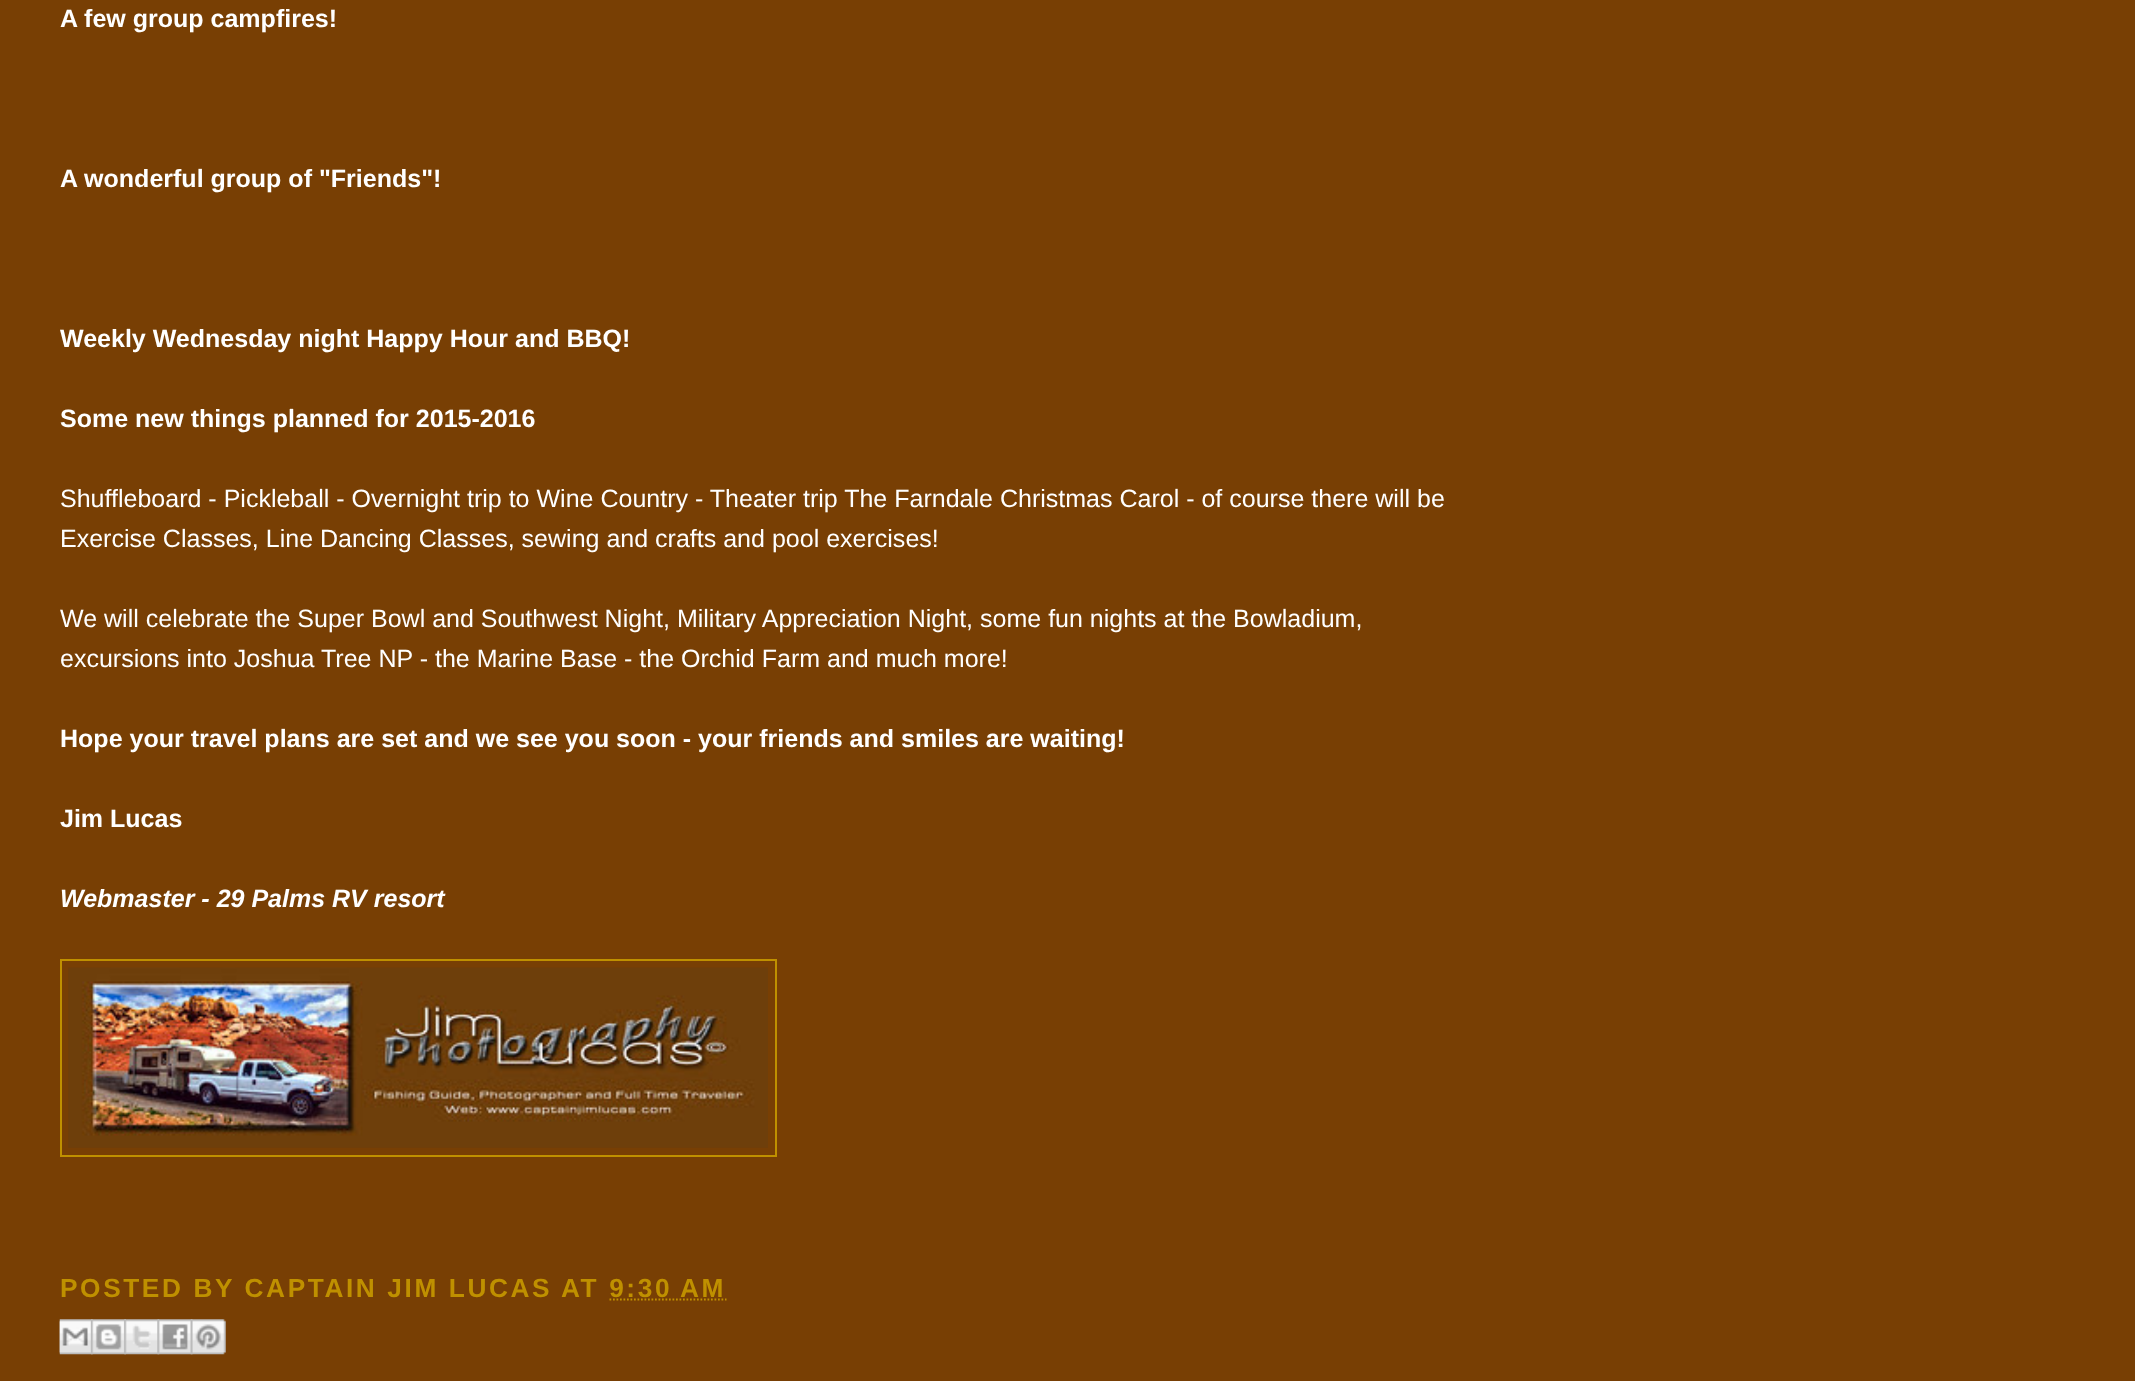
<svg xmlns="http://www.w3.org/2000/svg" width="2135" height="1381">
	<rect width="100%" height="100%" fill="#783F04" />
	<g font-family="Liberation Sans" font-size="25.03" font-weight="700" fill="#FFFFFF">
		<text x="60" y="27">A few group campfires!</text>
		<text x="60" y="187">A wonderful group of "Friends"!</text>
		<text x="60" y="347">Weekly Wednesday night Happy Hour and BBQ!</text>
		<text x="60" y="427">Some new things planned for 2015-2016</text>
	</g>
	<g font-family="Liberation Sans" font-size="25.03" fill="#FFFFFF">
		<text x="60" y="507">Shuffleboard - Pickleball - Overnight trip to Wine Country - Theater trip The Farndale Christmas Carol - of course there will be</text>
		<text x="60" y="547">Exercise Classes, Line Dancing Classes, sewing and crafts and pool exercises!</text>
		<text x="60" y="627">We will celebrate the Super Bowl and Southwest Night, Military Appreciation Night, some fun nights at the Bowladium,</text>
		<text x="60" y="667">excursions into Joshua Tree NP - the Marine Base - the Orchid Farm and much more!</text>
	</g>
	<g font-family="Liberation Sans" font-size="25.03" font-weight="700" fill="#FFFFFF">
		<text x="60" y="747">Hope your travel plans are set and we see you soon - your friends and smiles are waiting!</text>
		<text x="60" y="827">Jim Lucas</text>
	</g>
	<text x="60" y="907" font-family="Liberation Sans" font-size="25.03" font-weight="700" font-style="italic" fill="#FFFFFF">Webmaster - 29 Palms RV resort</text>
	<rect x="61" y="960" width="715" height="196" fill="none" stroke="#BF9000" stroke-width="2" />
	<image x="68" y="967" width="700" height="181" href="assets/img1.png" />
	<g font-family="Liberation Sans" font-size="26.25" font-weight="700" letter-spacing="2.6" fill="#BF9000">
		<text x="60" y="1297">POSTED BY CAPTAIN JIM LUCAS</text>
		<text x="561" y="1297">AT 9:30 AM</text>
	</g>
	<path d="M609.5 1299.5H726.5" fill="none" stroke="#BF9000" stroke-width="1.8" stroke-dasharray="1.75 1.75" />
	<image x="59" y="1319" width="34" height="36" href="assets/img2.png" />
	<image x="91" y="1319" width="35" height="36" href="assets/img3.png" />
	<image x="124" y="1319" width="36" height="36" href="assets/img4.png" />
	<image x="157" y="1319" width="36" height="36" href="assets/img5.png" />
	<image x="190" y="1319" width="36" height="36" href="assets/img6.png" />
</svg>
